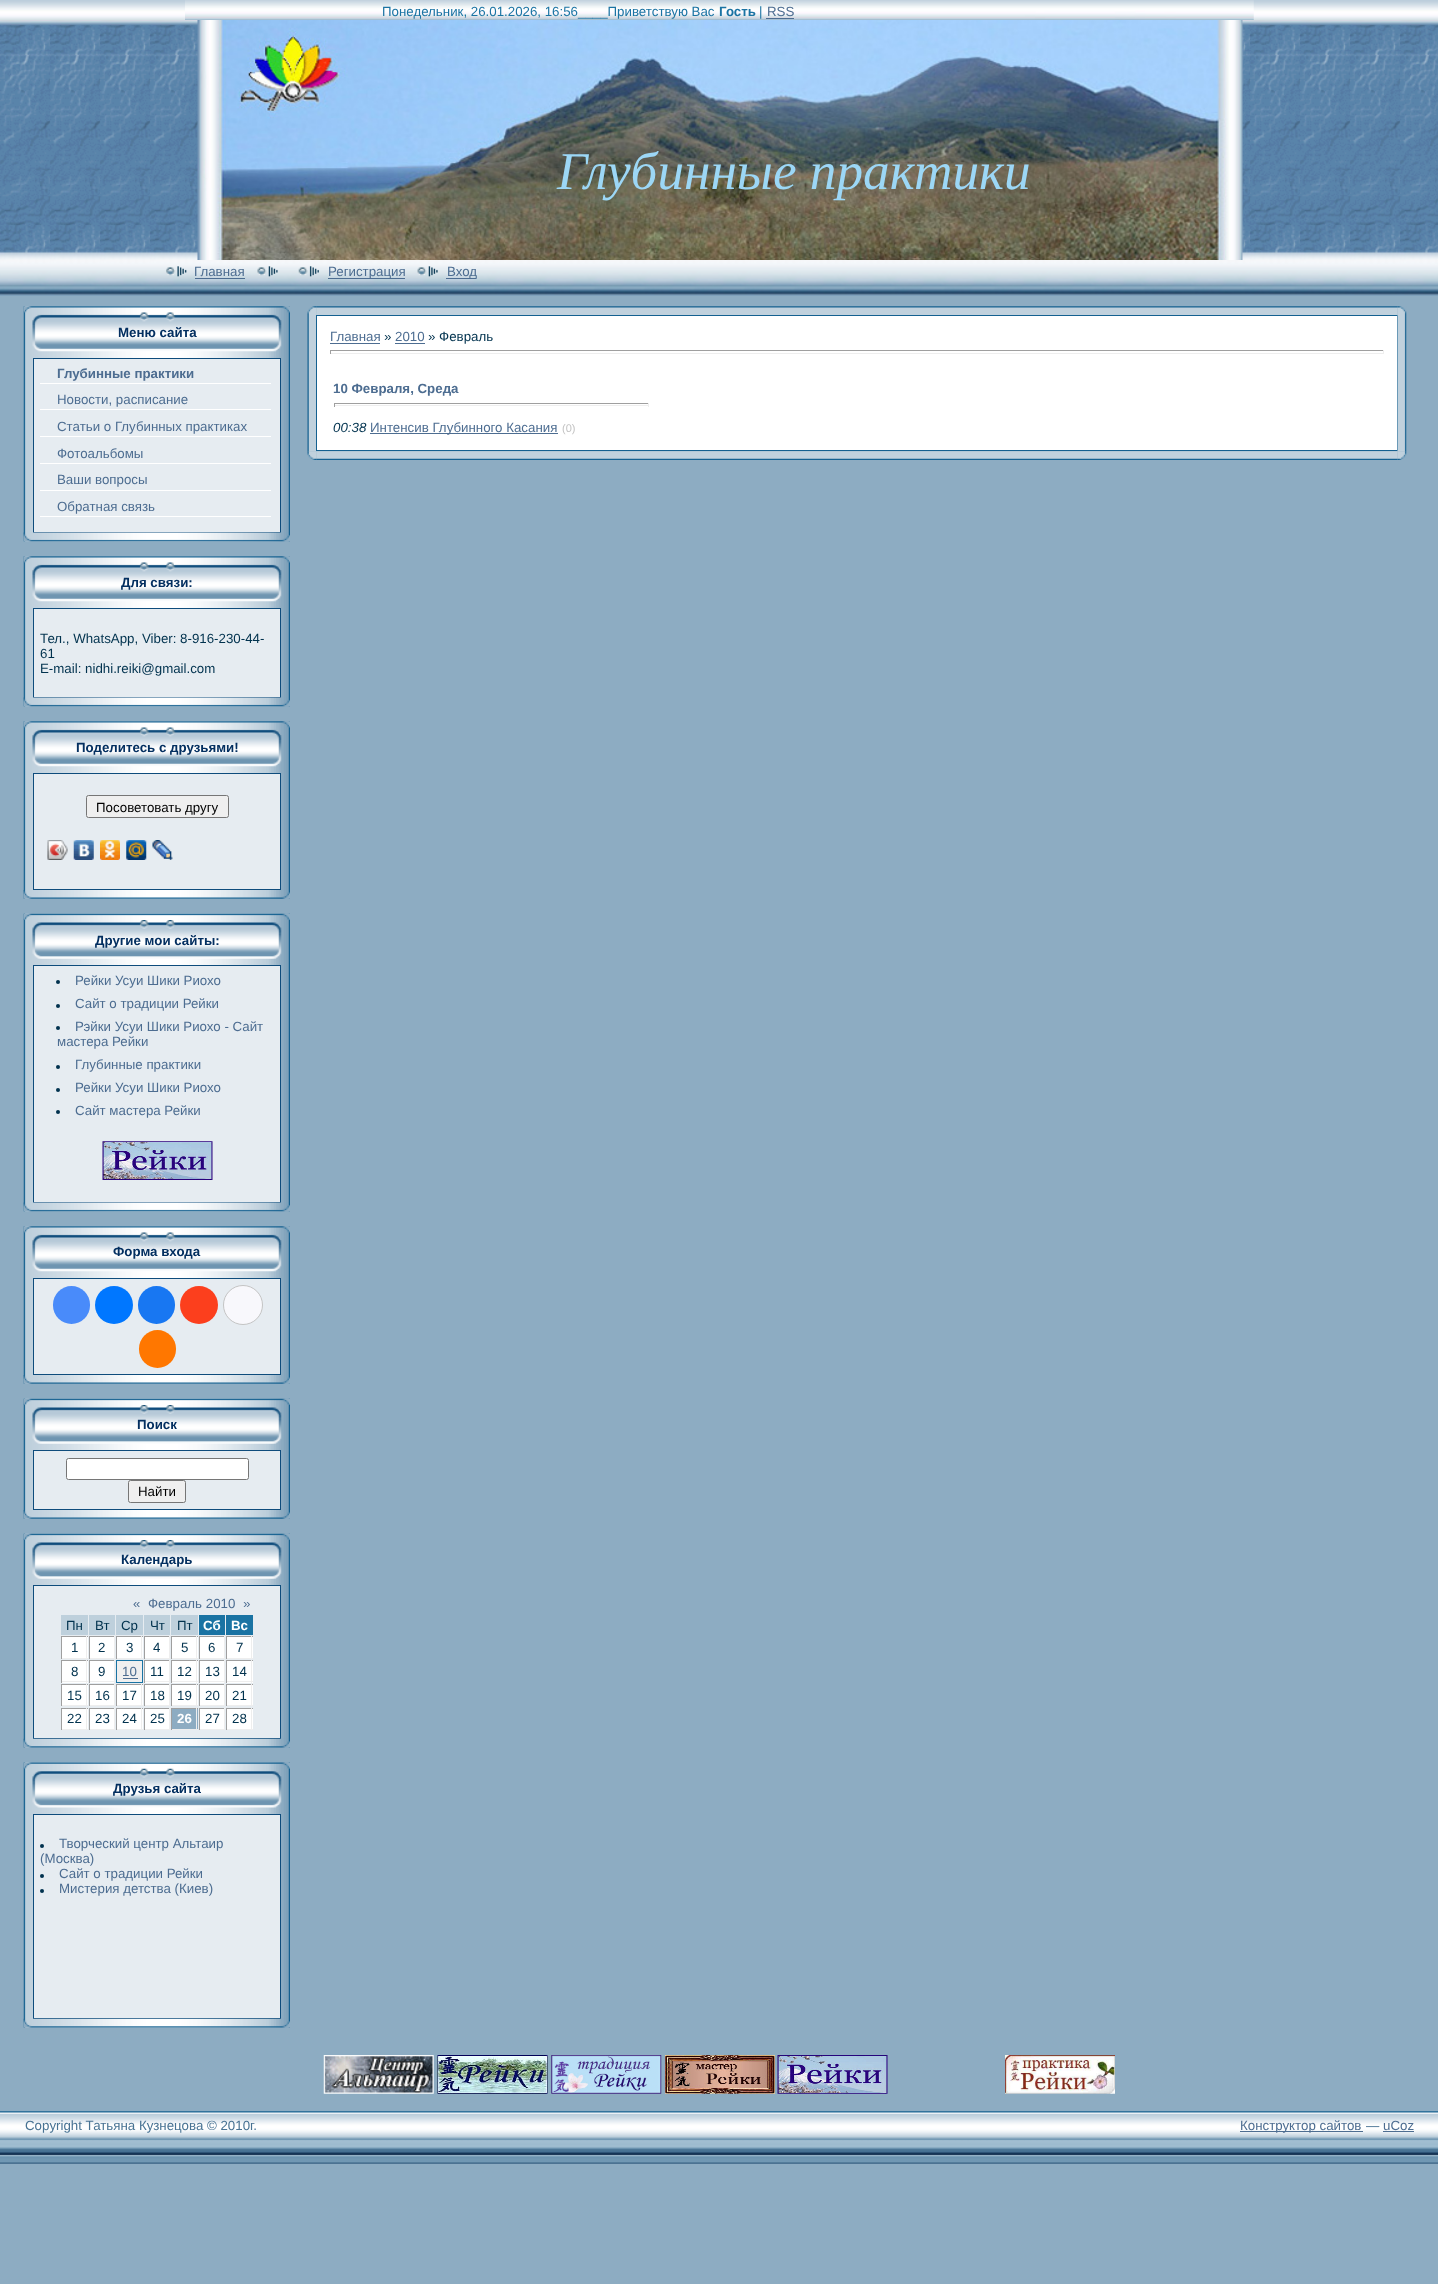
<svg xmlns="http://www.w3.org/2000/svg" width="1438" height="2284">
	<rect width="100%" height="100%" fill="#8DACC2" />
	<image x="0" y="0" width="1438" height="296" href="assets/img1.png" />
	<image x="185" y="0" width="1069" height="20" href="assets/img2.png" />
	<text x="382" y="16" font-family="Liberation Sans" font-size="13.3" fill="#1A73A3">Понедельник, 26.01.2026, 16:56____Приветствую Вас</text>
	<text x="719" y="16" font-family="Liberation Sans" font-size="13.3" font-weight="700" fill="#1A73A3">Гость</text>
	<text x="759" y="16" font-family="Liberation Sans" font-size="13.3" fill="#1A73A3">|</text>
	<text x="767" y="16" font-family="Liberation Sans" font-size="13.3" fill="#4D6D91">RSS</text>
	<rect x="766" y="18" width="28" height="1" fill="#4D6D91" />
	<image x="197" y="20" width="1046" height="240" href="assets/img3.png" />
	<text x="557" y="189" font-family="Liberation Serif" font-size="53.25" font-style="italic" fill="#9CD7F6">Глубинные практики</text>
	<image x="166" y="266" width="21" height="11" href="assets/img4.png" />
	<text x="194" y="276" font-family="Liberation Sans" font-size="13.3" fill="#4D6D91">Главная</text>
	<rect x="195" y="278" width="50" height="1" fill="#4D6D91" />
	<image x="257" y="266" width="21" height="11" href="assets/img5.png" />
	<image x="298" y="266" width="21" height="11" href="assets/img6.png" />
	<rect x="328" y="278" width="77" height="1" fill="#4D6D91" />
	<text x="328" y="276" font-family="Liberation Sans" font-size="13.3" fill="#4D6D91">Регистрация</text>
	<image x="417" y="266" width="21" height="11" href="assets/img7.png" />
	<rect x="446" y="278" width="30" height="1" fill="#4D6D91" />
	<text x="447" y="276" font-family="Liberation Sans" font-size="13.3" fill="#4D6D91">Вход</text>
	<image x="23" y="306" width="267" height="236" href="assets/img8.png" />
	<image x="23" y="306" width="267" height="7" href="assets/img9.png" />
	<image x="32" y="312" width="250" height="40" href="assets/img10.png" />
	<text x="118" y="337" font-family="Liberation Sans" font-size="13.3" font-weight="700" fill="#032F60">Меню сайта</text>
	<rect x="33.5" y="358.5" width="247" height="174" fill="#E6ECF1" stroke="#0E4C7C" />
	<rect x="40" y="383" width="231" height="1" fill="#FFFFFF" />
	<text x="57" y="378" font-family="Liberation Sans" font-size="13.3" font-weight="700" fill="#4D6D91">Глубинные практики</text>
	<rect x="40" y="409" width="231" height="1" fill="#FFFFFF" />
	<text x="57" y="404" font-family="Liberation Sans" font-size="13.3" fill="#4D6D91">Новости, расписание</text>
	<rect x="40" y="436" width="231" height="1" fill="#FFFFFF" />
	<text x="57" y="431" font-family="Liberation Sans" font-size="13.3" fill="#4D6D91">Статьи о Глубинных практиках</text>
	<rect x="40" y="463" width="231" height="1" fill="#FFFFFF" />
	<text x="57" y="458" font-family="Liberation Sans" font-size="13.3" fill="#4D6D91">Фотоальбомы</text>
	<rect x="40" y="490" width="231" height="1" fill="#FFFFFF" />
	<text x="57" y="484" font-family="Liberation Sans" font-size="13.3" fill="#4D6D91">Ваши вопросы</text>
	<rect x="40" y="516" width="231" height="1" fill="#FFFFFF" />
	<text x="57" y="511" font-family="Liberation Sans" font-size="13.3" fill="#4D6D91">Обратная связь</text>
	<image x="23" y="532" width="267" height="10" href="assets/img11.png" />
	<image x="23" y="556" width="267" height="151" href="assets/img12.png" />
	<image x="23" y="556" width="267" height="7" href="assets/img9.png" />
	<image x="32" y="562" width="250" height="40" href="assets/img13.png" />
	<text x="121" y="587" font-family="Liberation Sans" font-size="13.3" font-weight="700" fill="#032F60">Для связи:</text>
	<rect x="33.5" y="608.5" width="247" height="89" fill="#E6ECF1" stroke="#0E4C7C" />
	<g font-family="Liberation Sans" font-size="13.3" fill="#01324E">
		<text x="40" y="643">Тел., WhatsApp, Viber: 8-916-230-44-</text>
		<text x="40" y="658">61</text>
		<text x="40" y="673">E-mail: nidhi.reiki@gmail.com</text>
	</g>
	<image x="23" y="697" width="267" height="10" href="assets/img11.png" />
	<image x="23" y="721" width="267" height="178" href="assets/img14.png" />
	<image x="23" y="721" width="267" height="7" href="assets/img9.png" />
	<image x="32" y="727" width="250" height="40" href="assets/img10.png" />
	<text x="76" y="752" font-family="Liberation Sans" font-size="13.3" font-weight="700" fill="#032F60">Поделитесь с друзьями!</text>
	<rect x="33.5" y="773.5" width="247" height="116" fill="#E6ECF1" stroke="#0E4C7C" />
	<rect x="86.5" y="795.5" width="142" height="22" rx="2" fill="#EFEFEF" stroke="#767676" />
	<text x="96" y="812" font-family="Liberation Sans" font-size="13.3" fill="#000000">Посоветовать другу</text>
	<image x="47" y="840" width="21" height="20" href="assets/img15.png" />
	<image x="47" y="840" width="21" height="20" href="assets/img16.png" />
	<image x="73" y="840" width="21" height="20" href="assets/img17.png" />
	<image x="100" y="840" width="20" height="20" href="assets/img18.png" />
	<image x="126" y="840" width="21" height="20" href="assets/img19.png" />
	<image x="152" y="840" width="21" height="20" href="assets/img20.png" />
	<image x="23" y="890" width="267" height="9" href="assets/img21.png" />
	<image x="23" y="913" width="267" height="299" href="assets/img22.png" />
	<image x="23" y="913" width="267" height="7" href="assets/img23.png" />
	<image x="32" y="920" width="250" height="39" href="assets/img24.png" />
	<text x="95" y="945" font-family="Liberation Sans" font-size="13.3" font-weight="700" fill="#032F60">Другие мои сайты:</text>
	<rect x="33.5" y="965.5" width="247" height="237" fill="#E6ECF1" stroke="#0E4C7C" />
	<circle cx="58" cy="982" r="2" fill="#01324E" />
	<text x="75" y="985" font-family="Liberation Sans" font-size="13.3" fill="#4D6D91">Рейки Усуи Шики Риохо</text>
	<circle cx="58" cy="1006" r="2" fill="#01324E" />
	<text x="75" y="1008" font-family="Liberation Sans" font-size="13.3" fill="#4D6D91">Сайт о традиции Рейки</text>
	<circle cx="58" cy="1028" r="2" fill="#01324E" />
	<g font-family="Liberation Sans" font-size="13.3" fill="#4D6D91">
		<text x="75" y="1031">Рэйки Усуи Шики Риохо - Сайт</text>
		<text x="57" y="1046">мастера Рейки</text>
	</g>
	<circle cx="58" cy="1067" r="2" fill="#01324E" />
	<text x="75" y="1069" font-family="Liberation Sans" font-size="13.3" fill="#4D6D91">Глубинные практики</text>
	<circle cx="58" cy="1090" r="2" fill="#01324E" />
	<text x="75" y="1092" font-family="Liberation Sans" font-size="13.3" fill="#4D6D91">Рейки Усуи Шики Риохо</text>
	<circle cx="58" cy="1112" r="2" fill="#01324E" />
	<text x="75" y="1115" font-family="Liberation Sans" font-size="13.3" fill="#4D6D91">Сайт мастера Рейки</text>
	<image x="102" y="1141" width="111" height="39" href="assets/img25.png" />
	<image x="23" y="1202" width="267" height="10" href="assets/img11.png" />
	<image x="23" y="1226" width="267" height="158" href="assets/img26.png" />
	<image x="23" y="1226" width="267" height="7" href="assets/img9.png" />
	<image x="32" y="1232" width="250" height="40" href="assets/img10.png" />
	<text x="113" y="1256" font-family="Liberation Sans" font-size="13.3" font-weight="700" fill="#032F60">Форма входа</text>
	<rect x="33.5" y="1278.5" width="247" height="96" fill="#E6ECF1" stroke="#0E4C7C" />
	<rect x="53" y="1286" width="37" height="38" rx="18.5" fill="#498BFA" />
	<circle cx="114" cy="1305" r="19" fill="#0077FF" />
	<rect x="138" y="1286" width="37" height="38" rx="18.5" fill="#1877F2" />
	<circle cx="199" cy="1305" r="19" fill="#FC3F1D" />
	<circle cx="243" cy="1305" r="19.5" fill="#F8F8FC" stroke="#C4C4C4" />
	<rect x="139" y="1330" width="37" height="38" rx="18.5" fill="#FF7700" />
	<image x="23" y="1375" width="267" height="9" href="assets/img21.png" />
	<image x="23" y="1398" width="267" height="121" href="assets/img27.png" />
	<image x="23" y="1398" width="267" height="7" href="assets/img23.png" />
	<image x="32" y="1405" width="250" height="39" href="assets/img24.png" />
	<text x="137" y="1429" font-family="Liberation Sans" font-size="13.3" font-weight="700" fill="#032F60">Поиск</text>
	<rect x="33.5" y="1450.5" width="247" height="59" fill="#E6ECF1" stroke="#0E4C7C" />
	<rect x="66.5" y="1458.5" width="182" height="21" rx="2" fill="#FFFFFF" stroke="#767676" />
	<rect x="128.5" y="1480.5" width="57" height="22" rx="2" fill="#EFEFEF" stroke="#767676" />
	<text x="138" y="1496" font-family="Liberation Sans" font-size="13.3" fill="#000000">Найти</text>
	<image x="23" y="1510" width="267" height="9" href="assets/img21.png" />
	<image x="23" y="1533" width="267" height="215" href="assets/img28.png" />
	<image x="23" y="1533" width="267" height="7" href="assets/img23.png" />
	<image x="32" y="1540" width="250" height="39" href="assets/img24.png" />
	<text x="121" y="1564" font-family="Liberation Sans" font-size="13.3" font-weight="700" fill="#032F60">Календарь</text>
	<rect x="33.5" y="1585.5" width="247" height="153" fill="#E6ECF1" stroke="#0E4C7C" />
	<g font-family="Liberation Sans" font-size="13.3" fill="#4D6D91">
		<text x="133" y="1608">«</text>
		<text x="148" y="1608">Февраль 2010</text>
		<text x="243" y="1608">»</text>
	</g>
	<rect x="61" y="1615" width="27" height="20" fill="#BED0DC" />
	<text x="66" y="1630" font-family="Liberation Sans" font-size="13.3" fill="#01324E">Пн</text>
	<rect x="89" y="1615" width="26" height="20" fill="#BED0DC" />
	<text x="95" y="1630" font-family="Liberation Sans" font-size="13.3" fill="#01324E">Вт</text>
	<rect x="116" y="1615" width="27" height="20" fill="#BED0DC" />
	<text x="121" y="1630" font-family="Liberation Sans" font-size="13.3" fill="#01324E">Ср</text>
	<rect x="144" y="1615" width="26" height="20" fill="#BED0DC" />
	<text x="150" y="1630" font-family="Liberation Sans" font-size="13.3" fill="#01324E">Чт</text>
	<rect x="171" y="1615" width="27" height="20" fill="#BED0DC" />
	<text x="177" y="1630" font-family="Liberation Sans" font-size="13.3" fill="#01324E">Пт</text>
	<rect x="199" y="1615" width="26" height="20" fill="#1A73A3" />
	<text x="203" y="1630" font-family="Liberation Sans" font-size="13.3" font-weight="700" fill="#FFFFFF">Сб</text>
	<rect x="226" y="1615" width="27" height="20" fill="#1A73A3" />
	<text x="231" y="1630" font-family="Liberation Sans" font-size="13.3" font-weight="700" fill="#FFFFFF">Вс</text>
	<rect x="62" y="1637" width="26" height="21" fill="#FFFFFF" />
	<rect x="61" y="1636" width="27" height="1" fill="#9F9F9F" />
	<rect x="86" y="1636" width="1" height="23" fill="#EEEEEE" />
	<rect x="61" y="1658" width="27" height="1" fill="#EEEEEE" />
	<rect x="61" y="1636" width="1" height="23" fill="#9F9F9F" />
	<text x="71" y="1652" font-family="Liberation Sans" font-size="13.3" fill="#01324E">1</text>
	<rect x="90" y="1637" width="24" height="21" fill="#FFFFFF" />
	<rect x="89" y="1636" width="26" height="1" fill="#9F9F9F" />
	<rect x="114" y="1636" width="1" height="23" fill="#EEEEEE" />
	<rect x="89" y="1658" width="26" height="1" fill="#EEEEEE" />
	<rect x="89" y="1636" width="1" height="23" fill="#9F9F9F" />
	<text x="98" y="1652" font-family="Liberation Sans" font-size="13.3" fill="#01324E">2</text>
	<rect x="117" y="1637" width="26" height="21" fill="#FFFFFF" />
	<rect x="116" y="1636" width="27" height="1" fill="#9F9F9F" />
	<rect x="141" y="1636" width="1" height="23" fill="#EEEEEE" />
	<rect x="116" y="1658" width="27" height="1" fill="#EEEEEE" />
	<rect x="116" y="1636" width="1" height="23" fill="#9F9F9F" />
	<text x="126" y="1652" font-family="Liberation Sans" font-size="13.3" fill="#01324E">3</text>
	<rect x="145" y="1637" width="24" height="21" fill="#FFFFFF" />
	<rect x="144" y="1636" width="26" height="1" fill="#9F9F9F" />
	<rect x="169" y="1636" width="1" height="23" fill="#EEEEEE" />
	<rect x="144" y="1658" width="26" height="1" fill="#EEEEEE" />
	<rect x="144" y="1636" width="1" height="23" fill="#9F9F9F" />
	<text x="153" y="1652" font-family="Liberation Sans" font-size="13.3" fill="#01324E">4</text>
	<rect x="172" y="1637" width="26" height="21" fill="#FFFFFF" />
	<rect x="171" y="1636" width="27" height="1" fill="#9F9F9F" />
	<rect x="196" y="1636" width="1" height="23" fill="#EEEEEE" />
	<rect x="171" y="1658" width="27" height="1" fill="#EEEEEE" />
	<rect x="171" y="1636" width="1" height="23" fill="#9F9F9F" />
	<text x="181" y="1652" font-family="Liberation Sans" font-size="13.3" fill="#01324E">5</text>
	<rect x="200" y="1637" width="24" height="21" fill="#FFFFFF" />
	<rect x="199" y="1636" width="26" height="1" fill="#9F9F9F" />
	<rect x="224" y="1636" width="1" height="23" fill="#EEEEEE" />
	<rect x="199" y="1658" width="26" height="1" fill="#EEEEEE" />
	<rect x="199" y="1636" width="1" height="23" fill="#9F9F9F" />
	<text x="208" y="1652" font-family="Liberation Sans" font-size="13.3" fill="#01324E">6</text>
	<rect x="227" y="1637" width="26" height="21" fill="#FFFFFF" />
	<rect x="226" y="1636" width="27" height="1" fill="#9F9F9F" />
	<rect x="251" y="1636" width="1" height="23" fill="#EEEEEE" />
	<rect x="226" y="1658" width="27" height="1" fill="#EEEEEE" />
	<rect x="226" y="1636" width="1" height="23" fill="#9F9F9F" />
	<text x="236" y="1652" font-family="Liberation Sans" font-size="13.3" fill="#01324E">7</text>
	<rect x="62" y="1661" width="26" height="22" fill="#FFFFFF" />
	<rect x="61" y="1660" width="27" height="1" fill="#9F9F9F" />
	<rect x="86" y="1660" width="1" height="23" fill="#EEEEEE" />
	<rect x="61" y="1681" width="27" height="1" fill="#EEEEEE" />
	<rect x="61" y="1660" width="1" height="23" fill="#9F9F9F" />
	<text x="71" y="1676" font-family="Liberation Sans" font-size="13.3" fill="#01324E">8</text>
	<rect x="90" y="1661" width="24" height="22" fill="#FFFFFF" />
	<rect x="89" y="1660" width="26" height="1" fill="#9F9F9F" />
	<rect x="114" y="1660" width="1" height="23" fill="#EEEEEE" />
	<rect x="89" y="1681" width="26" height="1" fill="#EEEEEE" />
	<rect x="89" y="1660" width="1" height="23" fill="#9F9F9F" />
	<text x="98" y="1676" font-family="Liberation Sans" font-size="13.3" fill="#01324E">9</text>
	<rect x="116.5" y="1660.5" width="26" height="22" fill="#EFEFEF" stroke="#1A73A3" />
	<text x="122" y="1676" font-family="Liberation Sans" font-size="13.3" fill="#4D6D91">10</text>
	<rect x="123" y="1678" width="15" height="1" fill="#4D6D91" />
	<rect x="145" y="1661" width="24" height="22" fill="#FFFFFF" />
	<rect x="144" y="1660" width="26" height="1" fill="#9F9F9F" />
	<rect x="169" y="1660" width="1" height="23" fill="#EEEEEE" />
	<rect x="144" y="1681" width="26" height="1" fill="#EEEEEE" />
	<rect x="144" y="1660" width="1" height="23" fill="#9F9F9F" />
	<text x="150" y="1676" font-family="Liberation Sans" font-size="13.3" fill="#01324E">11</text>
	<rect x="172" y="1661" width="26" height="22" fill="#FFFFFF" />
	<rect x="171" y="1660" width="27" height="1" fill="#9F9F9F" />
	<rect x="196" y="1660" width="1" height="23" fill="#EEEEEE" />
	<rect x="171" y="1681" width="27" height="1" fill="#EEEEEE" />
	<rect x="171" y="1660" width="1" height="23" fill="#9F9F9F" />
	<text x="177" y="1676" font-family="Liberation Sans" font-size="13.3" fill="#01324E">12</text>
	<rect x="200" y="1661" width="24" height="22" fill="#FFFFFF" />
	<rect x="199" y="1660" width="26" height="1" fill="#9F9F9F" />
	<rect x="224" y="1660" width="1" height="23" fill="#EEEEEE" />
	<rect x="199" y="1681" width="26" height="1" fill="#EEEEEE" />
	<rect x="199" y="1660" width="1" height="23" fill="#9F9F9F" />
	<text x="205" y="1676" font-family="Liberation Sans" font-size="13.3" fill="#01324E">13</text>
	<rect x="227" y="1661" width="26" height="22" fill="#FFFFFF" />
	<rect x="226" y="1660" width="27" height="1" fill="#9F9F9F" />
	<rect x="251" y="1660" width="1" height="23" fill="#EEEEEE" />
	<rect x="226" y="1681" width="27" height="1" fill="#EEEEEE" />
	<rect x="226" y="1660" width="1" height="23" fill="#9F9F9F" />
	<text x="232" y="1676" font-family="Liberation Sans" font-size="13.3" fill="#01324E">14</text>
	<rect x="62" y="1685" width="26" height="20" fill="#FFFFFF" />
	<rect x="61" y="1684" width="27" height="1" fill="#9F9F9F" />
	<rect x="86" y="1684" width="1" height="22" fill="#EEEEEE" />
	<rect x="61" y="1705" width="27" height="1" fill="#EEEEEE" />
	<rect x="61" y="1684" width="1" height="22" fill="#9F9F9F" />
	<text x="67" y="1700" font-family="Liberation Sans" font-size="13.3" fill="#01324E">15</text>
	<rect x="90" y="1685" width="24" height="20" fill="#FFFFFF" />
	<rect x="89" y="1684" width="26" height="1" fill="#9F9F9F" />
	<rect x="114" y="1684" width="1" height="22" fill="#EEEEEE" />
	<rect x="89" y="1705" width="26" height="1" fill="#EEEEEE" />
	<rect x="89" y="1684" width="1" height="22" fill="#9F9F9F" />
	<text x="95" y="1700" font-family="Liberation Sans" font-size="13.3" fill="#01324E">16</text>
	<rect x="117" y="1685" width="26" height="20" fill="#FFFFFF" />
	<rect x="116" y="1684" width="27" height="1" fill="#9F9F9F" />
	<rect x="141" y="1684" width="1" height="22" fill="#EEEEEE" />
	<rect x="116" y="1705" width="27" height="1" fill="#EEEEEE" />
	<rect x="116" y="1684" width="1" height="22" fill="#9F9F9F" />
	<text x="122" y="1700" font-family="Liberation Sans" font-size="13.3" fill="#01324E">17</text>
	<rect x="145" y="1685" width="24" height="20" fill="#FFFFFF" />
	<rect x="144" y="1684" width="26" height="1" fill="#9F9F9F" />
	<rect x="169" y="1684" width="1" height="22" fill="#EEEEEE" />
	<rect x="144" y="1705" width="26" height="1" fill="#EEEEEE" />
	<rect x="144" y="1684" width="1" height="22" fill="#9F9F9F" />
	<text x="150" y="1700" font-family="Liberation Sans" font-size="13.3" fill="#01324E">18</text>
	<rect x="172" y="1685" width="26" height="20" fill="#FFFFFF" />
	<rect x="171" y="1684" width="27" height="1" fill="#9F9F9F" />
	<rect x="196" y="1684" width="1" height="22" fill="#EEEEEE" />
	<rect x="171" y="1705" width="27" height="1" fill="#EEEEEE" />
	<rect x="171" y="1684" width="1" height="22" fill="#9F9F9F" />
	<text x="177" y="1700" font-family="Liberation Sans" font-size="13.3" fill="#01324E">19</text>
	<rect x="200" y="1685" width="24" height="20" fill="#FFFFFF" />
	<rect x="199" y="1684" width="26" height="1" fill="#9F9F9F" />
	<rect x="224" y="1684" width="1" height="22" fill="#EEEEEE" />
	<rect x="199" y="1705" width="26" height="1" fill="#EEEEEE" />
	<rect x="199" y="1684" width="1" height="22" fill="#9F9F9F" />
	<text x="205" y="1700" font-family="Liberation Sans" font-size="13.3" fill="#01324E">20</text>
	<rect x="227" y="1685" width="26" height="20" fill="#FFFFFF" />
	<rect x="226" y="1684" width="27" height="1" fill="#9F9F9F" />
	<rect x="251" y="1684" width="1" height="22" fill="#EEEEEE" />
	<rect x="226" y="1705" width="27" height="1" fill="#EEEEEE" />
	<rect x="226" y="1684" width="1" height="22" fill="#9F9F9F" />
	<text x="232" y="1700" font-family="Liberation Sans" font-size="13.3" fill="#01324E">21</text>
	<rect x="62" y="1709" width="26" height="20" fill="#FFFFFF" />
	<rect x="61" y="1708" width="27" height="1" fill="#9F9F9F" />
	<rect x="86" y="1708" width="1" height="22" fill="#EEEEEE" />
	<rect x="61" y="1729" width="27" height="1" fill="#EEEEEE" />
	<rect x="61" y="1708" width="1" height="22" fill="#9F9F9F" />
	<text x="67" y="1723" font-family="Liberation Sans" font-size="13.3" fill="#01324E">22</text>
	<rect x="90" y="1709" width="24" height="20" fill="#FFFFFF" />
	<rect x="89" y="1708" width="26" height="1" fill="#9F9F9F" />
	<rect x="114" y="1708" width="1" height="22" fill="#EEEEEE" />
	<rect x="89" y="1729" width="26" height="1" fill="#EEEEEE" />
	<rect x="89" y="1708" width="1" height="22" fill="#9F9F9F" />
	<text x="95" y="1723" font-family="Liberation Sans" font-size="13.3" fill="#01324E">23</text>
	<rect x="117" y="1709" width="26" height="20" fill="#FFFFFF" />
	<rect x="116" y="1708" width="27" height="1" fill="#9F9F9F" />
	<rect x="141" y="1708" width="1" height="22" fill="#EEEEEE" />
	<rect x="116" y="1729" width="27" height="1" fill="#EEEEEE" />
	<rect x="116" y="1708" width="1" height="22" fill="#9F9F9F" />
	<text x="122" y="1723" font-family="Liberation Sans" font-size="13.3" fill="#01324E">24</text>
	<rect x="145" y="1709" width="24" height="20" fill="#FFFFFF" />
	<rect x="144" y="1708" width="26" height="1" fill="#9F9F9F" />
	<rect x="169" y="1708" width="1" height="22" fill="#EEEEEE" />
	<rect x="144" y="1729" width="26" height="1" fill="#EEEEEE" />
	<rect x="144" y="1708" width="1" height="22" fill="#9F9F9F" />
	<text x="150" y="1723" font-family="Liberation Sans" font-size="13.3" fill="#01324E">25</text>
	<rect x="172" y="1709" width="26" height="20" fill="#8DACC2" />
	<rect x="171" y="1708" width="27" height="1" fill="#9F9F9F" />
	<rect x="196" y="1708" width="1" height="22" fill="#EEEEEE" />
	<rect x="171" y="1729" width="27" height="1" fill="#EEEEEE" />
	<rect x="171" y="1708" width="1" height="22" fill="#9F9F9F" />
	<text x="177" y="1723" font-family="Liberation Sans" font-size="13.3" font-weight="700" fill="#FFFFFF">26</text>
	<rect x="200" y="1709" width="24" height="20" fill="#FFFFFF" />
	<rect x="199" y="1708" width="26" height="1" fill="#9F9F9F" />
	<rect x="224" y="1708" width="1" height="22" fill="#EEEEEE" />
	<rect x="199" y="1729" width="26" height="1" fill="#EEEEEE" />
	<rect x="199" y="1708" width="1" height="22" fill="#9F9F9F" />
	<text x="205" y="1723" font-family="Liberation Sans" font-size="13.3" fill="#01324E">27</text>
	<rect x="227" y="1709" width="26" height="20" fill="#FFFFFF" />
	<rect x="226" y="1708" width="27" height="1" fill="#9F9F9F" />
	<rect x="251" y="1708" width="1" height="22" fill="#EEEEEE" />
	<rect x="226" y="1729" width="27" height="1" fill="#EEEEEE" />
	<rect x="226" y="1708" width="1" height="22" fill="#9F9F9F" />
	<text x="232" y="1723" font-family="Liberation Sans" font-size="13.3" fill="#01324E">28</text>
	<image x="23" y="1738" width="267" height="10" href="assets/img29.png" />
	<image x="23" y="1762" width="267" height="266" href="assets/img30.png" />
	<image x="23" y="1762" width="267" height="7" href="assets/img31.png" />
	<image x="32" y="1768" width="250" height="40" href="assets/img32.png" />
	<text x="113" y="1793" font-family="Liberation Sans" font-size="13.3" font-weight="700" fill="#032F60">Друзья сайта</text>
	<rect x="33.5" y="1814.5" width="247" height="204" fill="#E6ECF1" stroke="#0E4C7C" />
	<circle cx="42" cy="1846" r="2" fill="#01324E" />
	<g font-family="Liberation Sans" font-size="13.3" fill="#4D6D91">
		<text x="59" y="1848">Творческий центр Альтаир</text>
		<text x="40" y="1863">(Москва)</text>
	</g>
	<circle cx="42" cy="1876" r="2" fill="#01324E" />
	<text x="59" y="1878" font-family="Liberation Sans" font-size="13.3" fill="#4D6D91">Сайт о традиции Рейки</text>
	<circle cx="42" cy="1891" r="2" fill="#01324E" />
	<text x="59" y="1893" font-family="Liberation Sans" font-size="13.3" fill="#4D6D91">Мистерия детства (Киев)</text>
	<image x="23" y="2018" width="267" height="10" href="assets/img29.png" />
	<image x="316" y="306" width="1082" height="9" href="assets/img34.png" />
	<image x="307" y="306" width="10" height="9" href="assets/img33.png" />
	<image x="1397" y="306" width="10" height="9" href="assets/img35.png" />
	<image x="307" y="315" width="10" height="137" href="assets/img36.png" />
	<rect x="316.5" y="315.5" width="1081" height="135" fill="#FFFFFF" stroke="#146090" />
	<text x="330" y="341" font-family="Liberation Sans" font-size="13.3" fill="#4D6D91">Главная</text>
	<rect x="330" y="343" width="50" height="1" fill="#4D6D91" />
	<text x="384" y="341" font-family="Liberation Sans" font-size="13.3" fill="#01324E">»</text>
	<text x="395" y="341" font-family="Liberation Sans" font-size="13.3" fill="#4D6D91">2010</text>
	<rect x="395" y="343" width="30" height="1" fill="#4D6D91" />
	<text x="428" y="341" font-family="Liberation Sans" font-size="13.3" fill="#01324E">» Февраль</text>
	<rect x="330" y="350" width="1054" height="1" fill="#9F9F9F" />
	<rect x="1383" y="350" width="1" height="4" fill="#EEEEEE" />
	<rect x="330" y="353" width="1054" height="1" fill="#EEEEEE" />
	<rect x="330" y="350" width="1" height="4" fill="#9F9F9F" />
	<text x="333" y="393" font-family="Liberation Sans" font-size="13.3" font-weight="700" fill="#4D6D91">10 Февраля, Среда</text>
	<rect x="334" y="403" width="315" height="1" fill="#9F9F9F" />
	<rect x="648" y="403" width="1" height="4" fill="#EEEEEE" />
	<rect x="334" y="405" width="315" height="1" fill="#EEEEEE" />
	<rect x="334" y="403" width="1" height="4" fill="#9F9F9F" />
	<text x="333" y="432" font-family="Liberation Sans" font-size="13.3" font-style="italic" fill="#01324E">00:38</text>
	<rect x="370" y="433" width="188" height="1" fill="#4D6D91" />
	<text x="370" y="432" font-family="Liberation Sans" font-size="13.3" fill="#4D6D91">Интенсив Глубинного Касания</text>
	<text x="562" y="432" font-family="Liberation Sans" font-size="11" fill="#C3C3C3">(0)</text>
	<image x="1397" y="315" width="10" height="137" href="assets/img37.png" />
	<image x="316" y="451" width="1082" height="9" href="assets/img39.png" />
	<image x="307" y="451" width="10" height="9" href="assets/img38.png" />
	<image x="1397" y="451" width="10" height="9" href="assets/img40.png" />
	<image x="323" y="2055" width="111" height="39" href="assets/img41.png" />
	<image x="437" y="2055" width="111" height="39" href="assets/img42.png" />
	<image x="551" y="2055" width="111" height="39" href="assets/img43.png" />
	<image x="665" y="2055" width="110" height="39" href="assets/img44.png" />
	<image x="777" y="2055" width="111" height="39" href="assets/img45.png" />
	<image x="1005" y="2055" width="110" height="39" href="assets/img46.png" />
	<image x="0" y="2111" width="1438" height="53" href="assets/img47.png" />
	<text x="25" y="2130" font-family="Liberation Sans" font-size="13.3" fill="#477293">Copyright Татьяна Кузнецова © 2010г.</text>
	<rect x="1240" y="2131" width="123" height="1" fill="#4D6D91" />
	<text x="1240" y="2130" font-family="Liberation Sans" font-size="13.3" fill="#4D6D91">Конструктор сайтов</text>
	<text x="1366" y="2130" font-family="Liberation Sans" font-size="13.3" fill="#477293">—</text>
	<text x="1383" y="2130" font-family="Liberation Sans" font-size="13.3" fill="#4D6D91">uCoz</text>
	<rect x="1383" y="2131" width="31" height="1" fill="#4D6D91" />
</svg>
